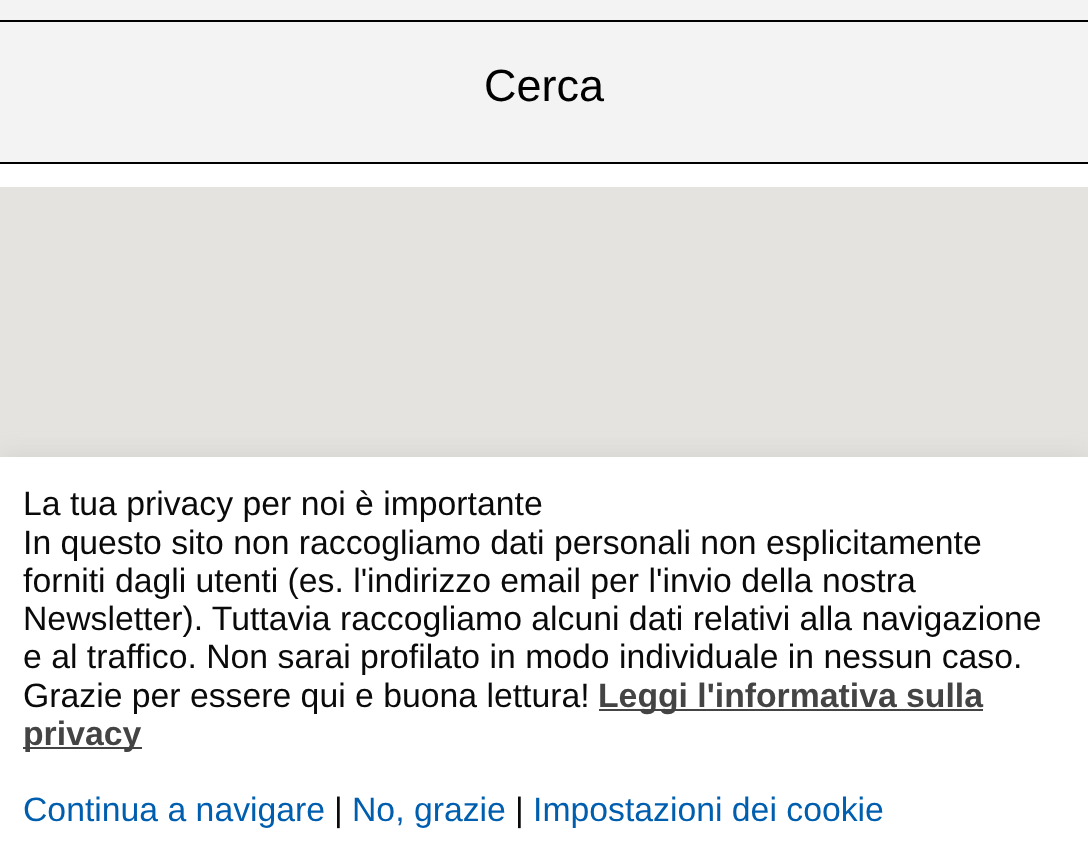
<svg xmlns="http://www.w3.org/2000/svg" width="1088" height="854">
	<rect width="100%" height="100%" fill="#FFFFFF" />
	<rect x="0" y="0" width="1088" height="162" fill="#F4F3F3" />
	<rect x="0" y="162" width="1088" height="2" fill="#000000" />
	<rect x="0" y="20" width="1088" height="2" fill="#000000" />
	<text x="484" y="101" font-family="Liberation Sans" font-size="45" fill="#000000">Cerca</text>
	<rect x="0" y="187" width="1088" height="270" fill="#E5E3DF" />
	<rect x="0" y="455" width="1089" height="398" fill="#ACABAB" fill-opacity="0.3" filter="blur(11px)" />
	<rect x="0" y="457" width="1088" height="397" fill="#FFFFFF" />
	<g font-family="Liberation Sans" font-size="33.75" fill="#0A0A0A">
		<text x="23" y="515">La tua privacy per noi è importante</text>
		<text x="23" y="554">In questo sito non raccogliamo dati personali non esplicitamente</text>
		<text x="23" y="592">forniti dagli utenti (es. l'indirizzo email per l'invio della nostra</text>
		<text x="23" y="630">Newsletter). Tuttavia raccogliamo alcuni dati relativi alla navigazione</text>
		<text x="23" y="668">e al traffico. Non sarai profilato in modo individuale in nessun caso.</text>
		<text x="23" y="707">Grazie per essere qui e buona lettura!</text>
	</g>
	<rect x="599" y="709" width="384" height="2" fill="#444444" />
	<text x="598" y="707" font-family="Liberation Sans" font-size="33.75" font-weight="700" fill="#444444">Leggi l'informativa sulla</text>
	<rect x="23" y="747" width="119" height="2" fill="#444444" />
	<text x="23" y="745" font-family="Liberation Sans" font-size="33.75" font-weight="700" fill="#444444">privacy</text>
	<text x="23" y="821" font-family="Liberation Sans" font-size="33.75" fill="#005EAF">Continua a navigare</text>
	<text x="334" y="821" font-family="Liberation Sans" font-size="33.75" fill="#0A0A0A">|</text>
	<text x="352" y="821" font-family="Liberation Sans" font-size="33.75" fill="#005EAF">No, grazie</text>
	<text x="515" y="821" font-family="Liberation Sans" font-size="33.75" fill="#0A0A0A">|</text>
	<text x="533" y="821" font-family="Liberation Sans" font-size="33.75" fill="#005EAF">Impostazioni dei cookie</text>
</svg>
